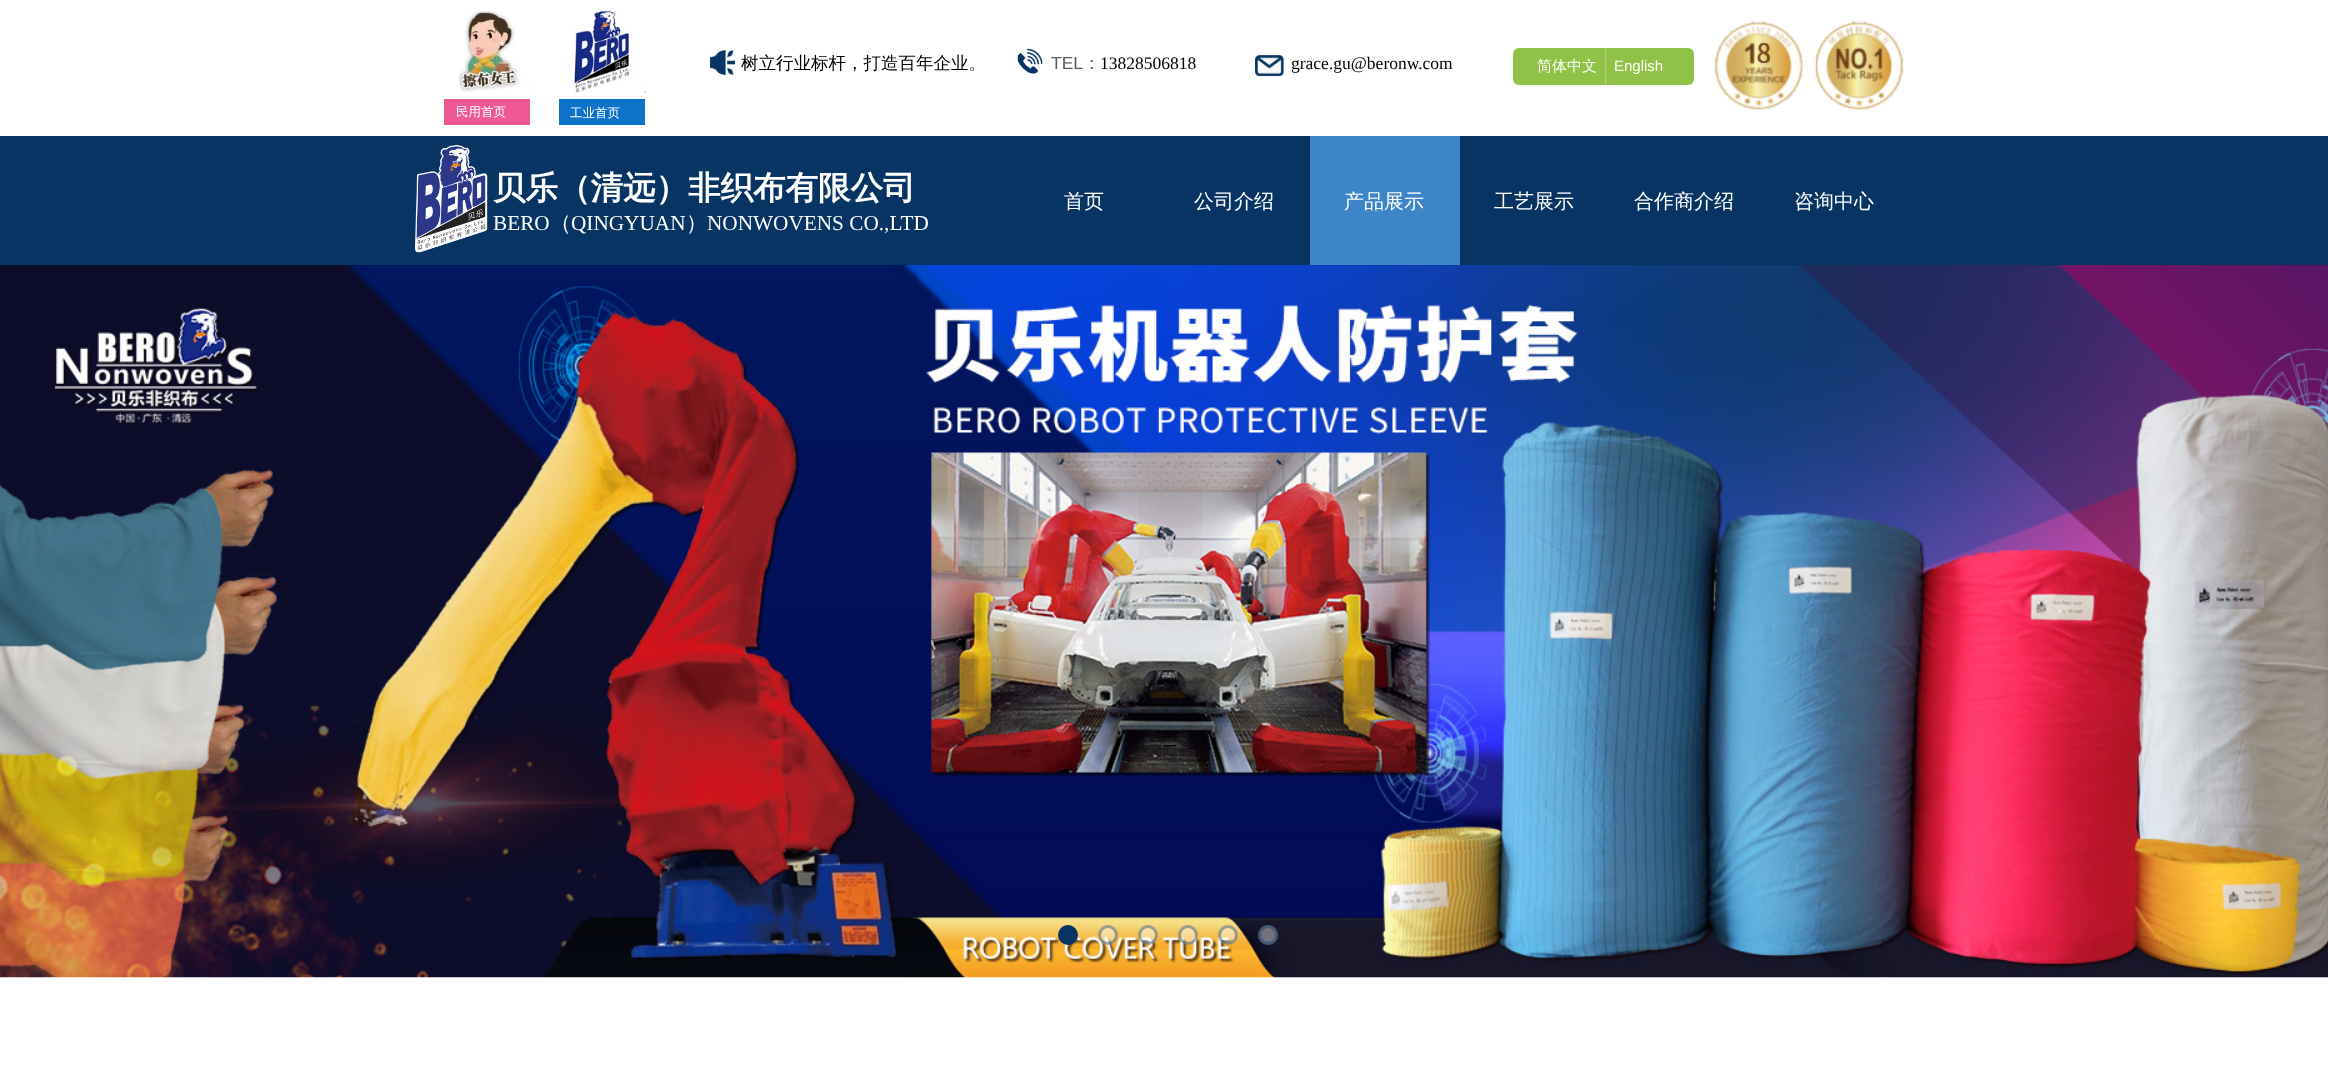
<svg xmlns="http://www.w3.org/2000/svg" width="2328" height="1087">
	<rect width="100%" height="100%" fill="#FFFFFF" />
	<image x="457" y="11" width="77" height="81" href="assets/img1.png" />
	<image x="568" y="11" width="79" height="82" href="assets/img2.png" />
	<image x="710" y="50" width="25" height="25" href="assets/img3.png" />
	<text x="741" y="69" font-family="WenQuanYi Zen Hei" font-size="17.5" font-weight="500" fill="#000000">树立行业标杆，打造百年企业。</text>
	<image x="1017" y="48" width="26" height="26" href="assets/img4.png" />
	<text x="1051" y="69" font-family="Liberation Sans" font-size="17.5" fill="#5A5A5A">TEL</text>
	<text x="1083" y="69" font-family="WenQuanYi Zen Hei" font-size="17.5" font-weight="500" fill="#5A5A5A">：</text>
	<text x="1100" y="69" font-family="Liberation Serif" font-size="17.5" fill="#000000">13828506818</text>
	<image x="1255" y="55" width="29" height="22" href="assets/img5.png" />
	<text x="1291" y="69" font-family="Liberation Serif" font-size="17.5" fill="#000000">grace.gu@beronw.com</text>
	<rect x="1513" y="48" width="181" height="37" rx="6" fill="#8FC246" />
	<image x="1605" y="48" width="2" height="37" href="assets/img6.png" />
	<text x="1537" y="71" font-family="WenQuanYi Zen Hei" font-size="15" font-weight="500" fill="#FFFFFF">简体中文</text>
	<text x="1614" y="71" font-family="Liberation Sans" font-size="15" fill="#FFFFFF">English</text>
	<image x="1714" y="21" width="190" height="89" href="assets/img7.png" />
	<rect x="444" y="99" width="86" height="26" fill="#EE5894" />
	<rect x="559" y="99" width="86" height="26" fill="#0F72C9" />
	<g font-family="WenQuanYi Zen Hei" font-size="12.5" font-weight="500" fill="#FFFFFF">
		<text x="456" y="116">民用首页</text>
		<text x="570" y="117">工业首页</text>
	</g>
	<rect x="0" y="136" width="2328" height="129" fill="#083463" />
	<image x="415" y="145" width="73" height="108" href="assets/img8.png" />
	<text x="493" y="199" font-family="WenQuanYi Zen Hei" font-size="32.5" font-weight="700" fill="#FFFFFF">贝乐（清远）非织布有限公司</text>
	<g font-family="WenQuanYi Zen Hei" font-size="20" font-weight="500" fill="#FFFFFF">
		<text x="1064" y="208">首页</text>
		<text x="1194" y="208">公司介绍</text>
	</g>
	<rect x="1310" y="136" width="150" height="129" fill="#3D85C6" />
	<g font-family="WenQuanYi Zen Hei" font-size="20" font-weight="500" fill="#FFFFFF">
		<text x="1344" y="208">产品展示</text>
		<text x="1494" y="208">工艺展示</text>
		<text x="1634" y="208">合作商介绍</text>
		<text x="1794" y="208">咨询中心</text>
	</g>
	<text x="493" y="230" font-family="Liberation Serif" font-size="21.25" fill="#FFFFFF">BERO</text>
	<text x="550" y="230" font-family="WenQuanYi Zen Hei" font-size="21.25" font-weight="500" fill="#FFFFFF">（</text>
	<text x="571" y="230" font-family="Liberation Serif" font-size="21.25" fill="#FFFFFF">QINGYUAN</text>
	<text x="686" y="230" font-family="WenQuanYi Zen Hei" font-size="21.25" font-weight="500" fill="#FFFFFF">）</text>
	<text x="707" y="230" font-family="Liberation Serif" font-size="21.25" fill="#FFFFFF">NONWOVENS CO.,LTD</text>
	<image x="0" y="265" width="2328" height="713" href="assets/img9.png" />
	<circle cx="1068" cy="935" r="8.5" fill="#083464" stroke="#083464" stroke-width="3" />
	<circle cx="1108" cy="935" r="10" fill="#FFFFFF" fill-opacity="0.4" />
	<circle cx="1108" cy="935" r="8.5" fill="none" stroke="#083464" stroke-opacity="0.4" stroke-width="3" />
	<circle cx="1148" cy="935" r="10" fill="#FFFFFF" fill-opacity="0.4" />
	<circle cx="1148" cy="935" r="8.5" fill="none" stroke="#083464" stroke-opacity="0.4" stroke-width="3" />
	<circle cx="1188" cy="935" r="10" fill="#FFFFFF" fill-opacity="0.4" />
	<circle cx="1188" cy="935" r="8.5" fill="none" stroke="#083464" stroke-opacity="0.4" stroke-width="3" />
	<circle cx="1228" cy="935" r="10" fill="#FFFFFF" fill-opacity="0.4" />
	<circle cx="1228" cy="935" r="8.5" fill="none" stroke="#083464" stroke-opacity="0.4" stroke-width="3" />
	<circle cx="1268" cy="935" r="10" fill="#FFFFFF" fill-opacity="0.4" />
	<circle cx="1268" cy="935" r="8.5" fill="none" stroke="#083464" stroke-opacity="0.4" stroke-width="3" />
</svg>
